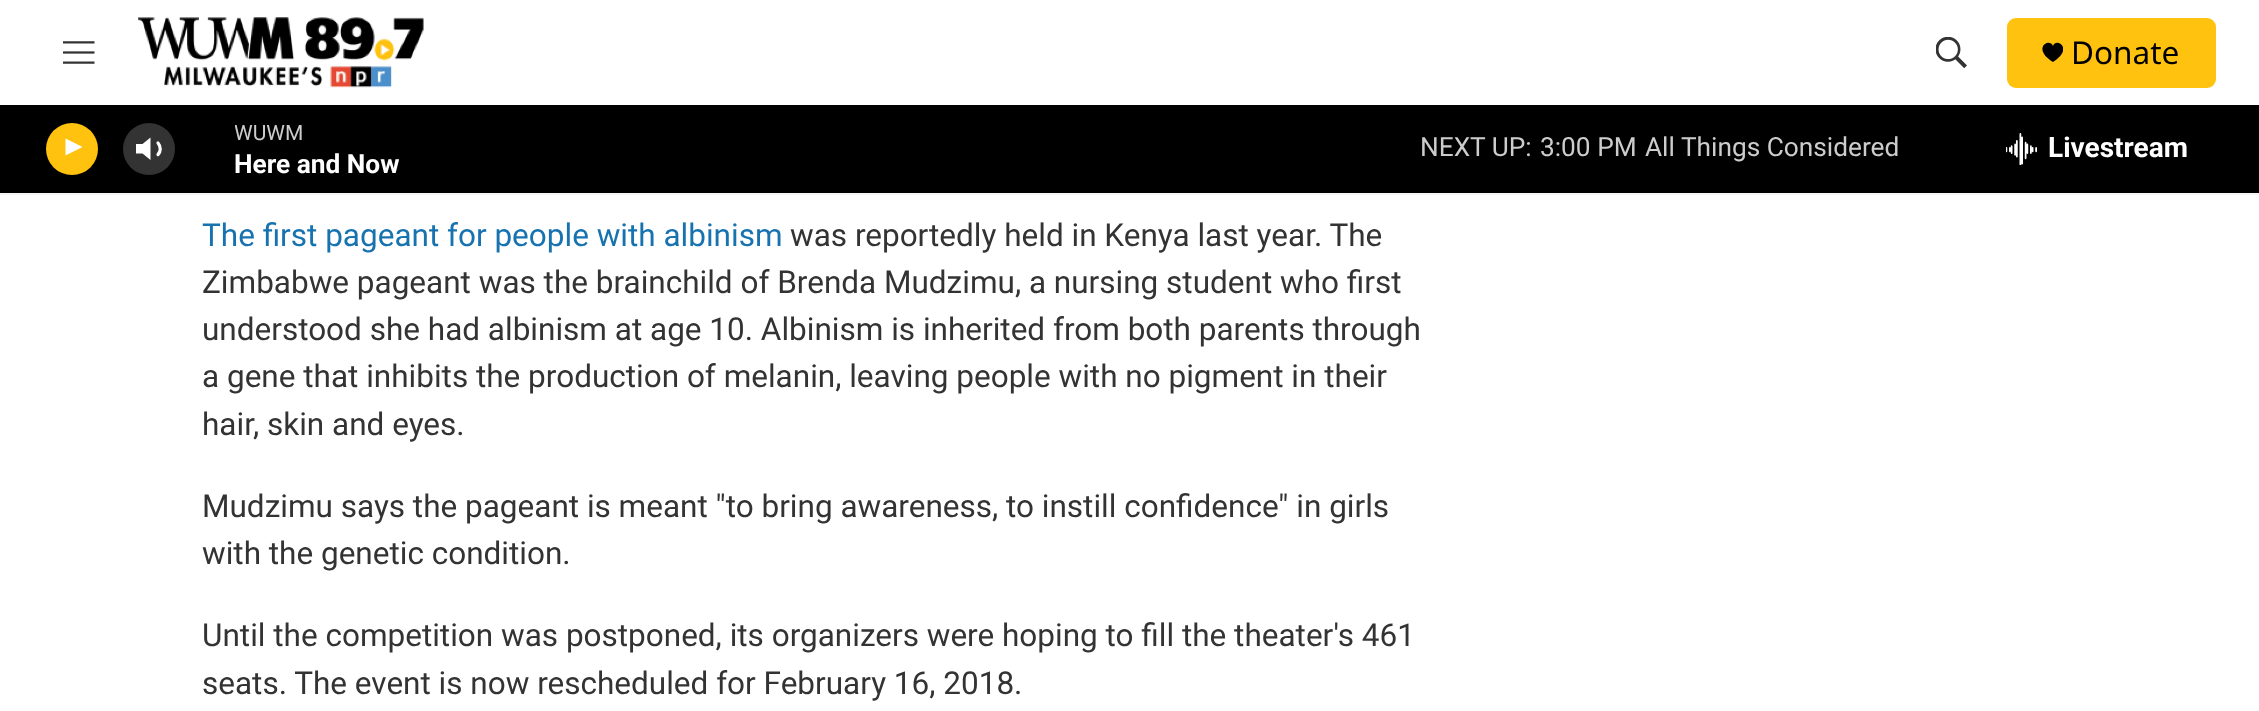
<svg xmlns="http://www.w3.org/2000/svg" width="2259" height="711">
	<defs>
		<clipPath id="clip1"><rect x="2042" y="42" width="21" height="21" /></clipPath>
		<clipPath id="clip2"><rect x="235" y="117" width="164" height="32" /></clipPath>
	</defs>
	<rect width="100%" height="100%" fill="#FFFFFF" />
	<rect x="0" y="193" width="2259" height="2" fill="#F5F5F5" />
	<image x="63" y="41" width="32" height="23" href="assets/img1.png" />
	<image x="138" y="17" width="286" height="71" href="assets/img2.png" />
	<image x="1936" y="37" width="31" height="31" href="assets/img3.png" />
	<rect x="2007" y="18" width="209" height="70" rx="9" fill="#FFC20E" />
	<g clip-path="url(#clip1)">
		<path d="M2053 46C2049.5 37 2031 48.5 2053 62C2074.5 48.5 2056 37 2053 46Z" fill="#000000" />
	</g>
	<text x="2071" y="64" font-family="Noto Sans" font-size="31.5" fill="#000000">Donate</text>
	<rect x="0" y="105" width="2259" height="88" fill="#000000" />
	<circle cx="72" cy="149" r="26" fill="#FFC20E" />
	<path d="M65.5 138.5L82.5 147L65.5 155.5Z" fill="#FFFFFF" />
	<path d="M150.5 137.5L142.5 144H136V153.5H142.5L150.5 160Z" fill="#FFFFFF" />
	<path d="M158 143C161 146.5 161 151.5 158 154.5" fill="none" stroke="#FFFFFF" stroke-width="3.2" stroke-linecap="round" stroke-linejoin="round" />
	<circle cx="149" cy="149" r="26" fill="#FFFFFF" fill-opacity="0.2" />
	<g clip-path="url(#clip2)">
		<text x="234" y="140" font-family="Roboto" font-size="21" fill="#CCCCCC">WUWM</text>
	</g>
	<text x="234" y="173" font-family="Roboto" font-size="26.25" font-weight="700" fill="#FFFFFF">Here and Now</text>
	<g font-family="Roboto" font-size="26.25" fill="#CCCCCC">
		<text x="1420" y="156">NEXT UP:</text>
		<text x="1540" y="156">3:00 PM</text>
		<text x="1645" y="156">All Things Considered</text>
	</g>
	<image x="2006" y="133" width="31" height="32" href="assets/img4.png" />
	<text x="2048" y="157" font-family="Roboto" font-size="28" font-weight="700" fill="#FFFFFF">Livestream</text>
	<text x="202" y="246" font-family="Roboto" font-size="31.5" fill="#1772B0">The first pageant for people with albinism</text>
	<g font-family="Roboto" font-size="31.5" fill="#333333">
		<text x="790" y="246">was reportedly held in Kenya last year. The</text>
		<text x="202" y="293">Zimbabwe pageant was the brainchild of Brenda Mudzimu, a nursing student who first</text>
		<text x="202" y="340">understood she had albinism at age 10. Albinism is inherited from both parents through</text>
		<text x="202" y="387">a gene that inhibits the production of melanin, leaving people with no pigment in their</text>
		<text x="202" y="435">hair, skin and eyes.</text>
		<text x="202" y="517">Mudzimu says the pageant is meant "to bring awareness, to instill confidence" in girls</text>
		<text x="202" y="564">with the genetic condition.</text>
		<text x="202" y="646">Until the competition was postponed, its organizers were hoping to fill the theater's 461</text>
		<text x="202" y="694">seats. The event is now rescheduled for February 16, 2018.</text>
	</g>
</svg>
